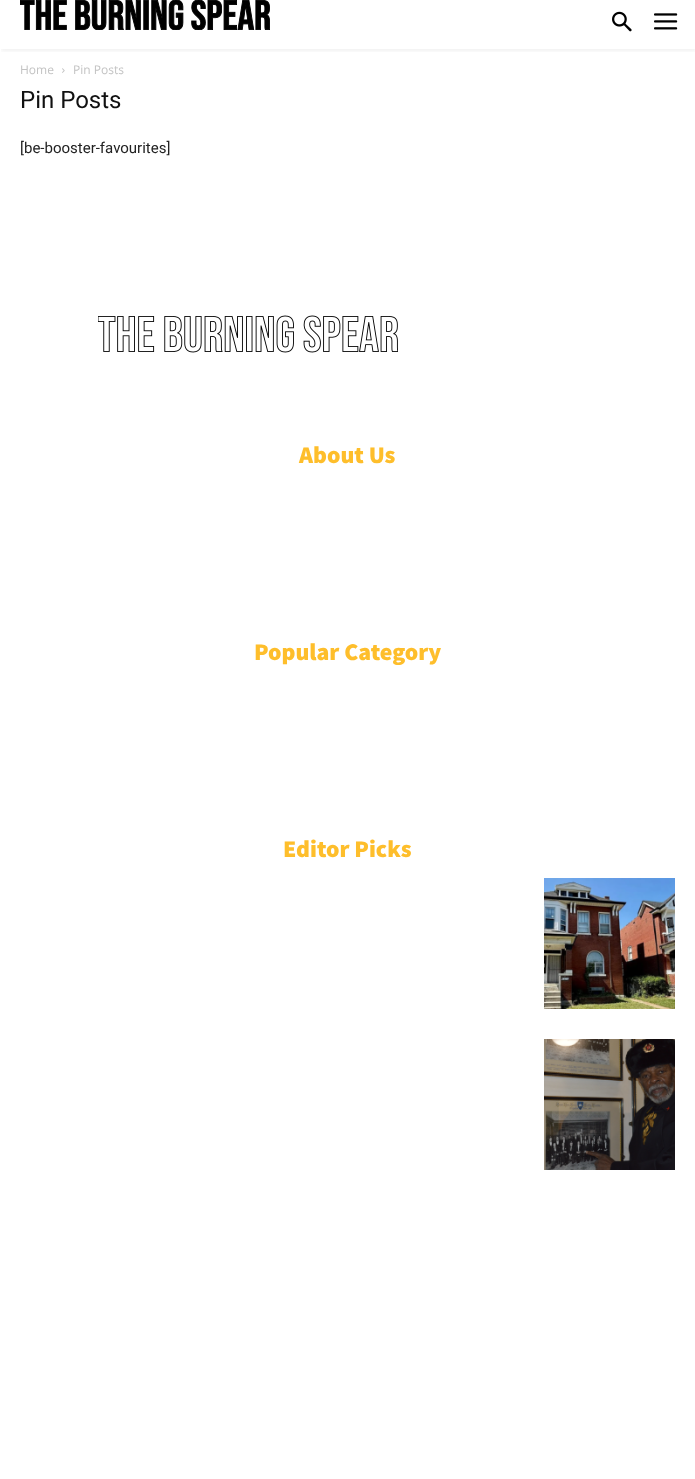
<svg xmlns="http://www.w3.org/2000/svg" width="695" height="1479">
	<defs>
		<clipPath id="clip1"><rect x="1" y="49" width="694" height="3" /></clipPath>
	</defs>
	<rect width="100%" height="100%" fill="#FFFFFF" />
	<image x="20" y="0" width="250" height="30" href="assets/img1.png" />
	<image x="612" y="11" width="20" height="21" href="assets/img2.png" />
	<image x="654" y="13" width="24" height="17" href="assets/img3.png" />
	<g clip-path="url(#clip1)">
		<rect x="1" y="2" width="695" height="49" fill="#000000" fill-opacity="0.06" filter="blur(2px)" />
	</g>
	<text x="20" y="74" font-family="Open Sans" font-size="12" fill="#C3C3C3">Home</text>
	<image x="62" y="68" width="3" height="5" href="assets/img4.png" />
	<text x="73" y="74" font-family="Open Sans" font-size="12" fill="#C3C3C3">Pin Posts</text>
	<text x="20" y="108" font-family="Roboto" font-size="24" fill="#111111">Pin Posts</text>
	<text x="20" y="153" font-family="Roboto" font-size="15" fill="#222222">[be-booster-favourites]</text>
	<image x="98" y="315" width="300" height="38" href="assets/img5.png" />
	<g font-family="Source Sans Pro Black" font-size="24" font-weight="900" fill="#FEBE2B">
		<text x="299" y="463">About Us</text>
		<text x="254" y="660">Popular Category</text>
		<text x="283" y="857">Editor Picks</text>
	</g>
	<image x="544" y="878" width="131" height="131" href="assets/img6.png" />
	<image x="544" y="1039" width="131" height="131" href="assets/img7.png" />
</svg>
